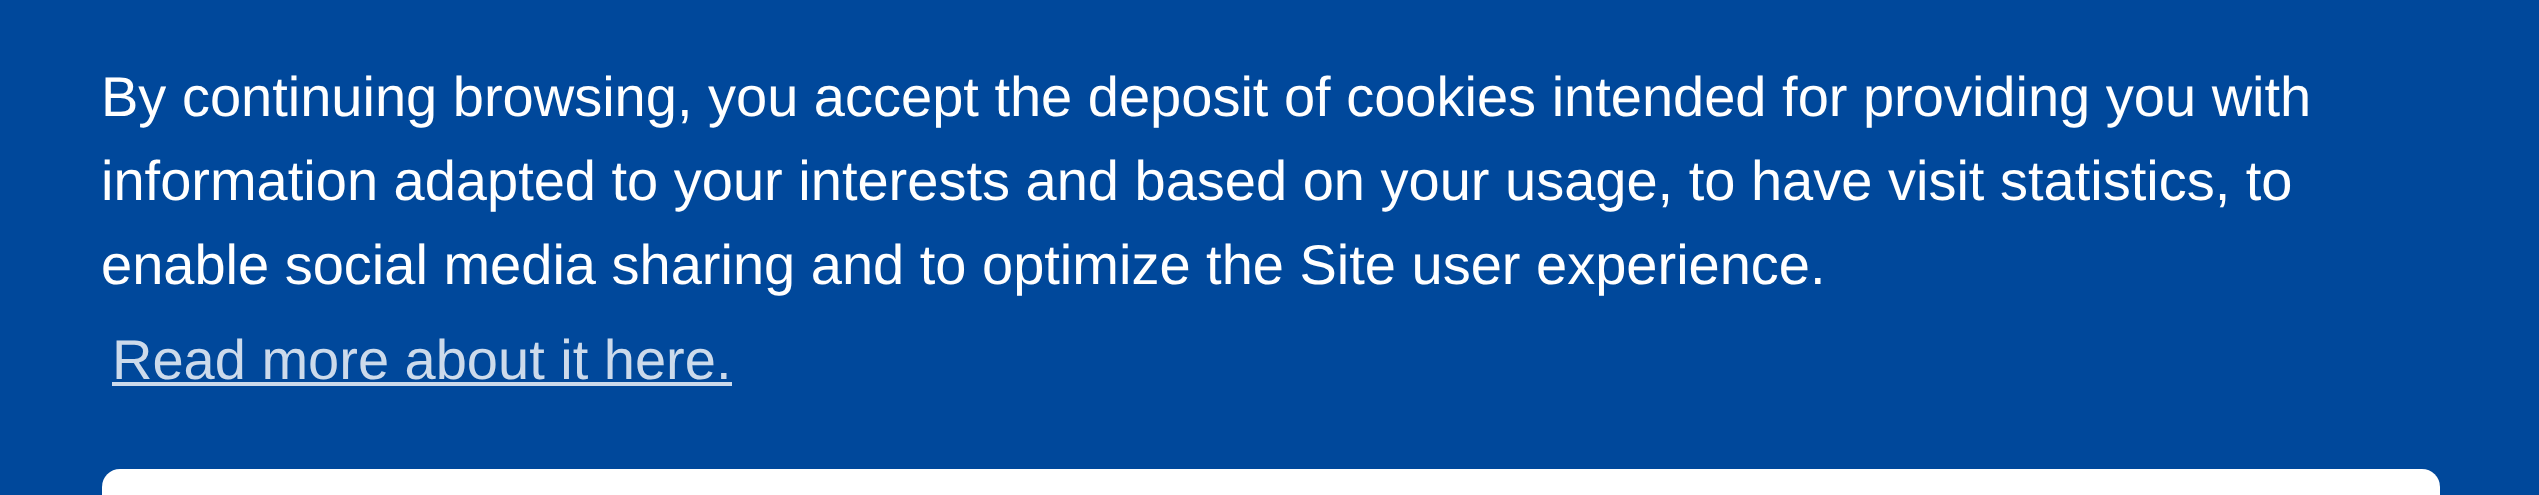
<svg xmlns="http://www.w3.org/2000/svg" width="2539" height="495">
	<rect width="100%" height="100%" fill="#00489B" />
	<g font-family="Liberation Sans" font-size="56" fill="#FFFFFF">
		<text x="101" y="116">By continuing browsing, you accept the deposit of cookies intended for providing you with</text>
		<text x="101" y="200">information adapted to your interests and based on your usage, to have visit statistics, to</text>
		<text x="101" y="284">enable social media sharing and to optimize the Site user experience.</text>
	</g>
	<text x="112" y="379" font-family="Liberation Sans" font-size="56" fill="#CCDAEB">Read more about it here.</text>
	<rect x="112" y="382" width="620" height="4" fill="#CCDAEB" />
	<rect x="102" y="469" width="2338" height="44" rx="18" fill="#FFFFFF" />
</svg>
